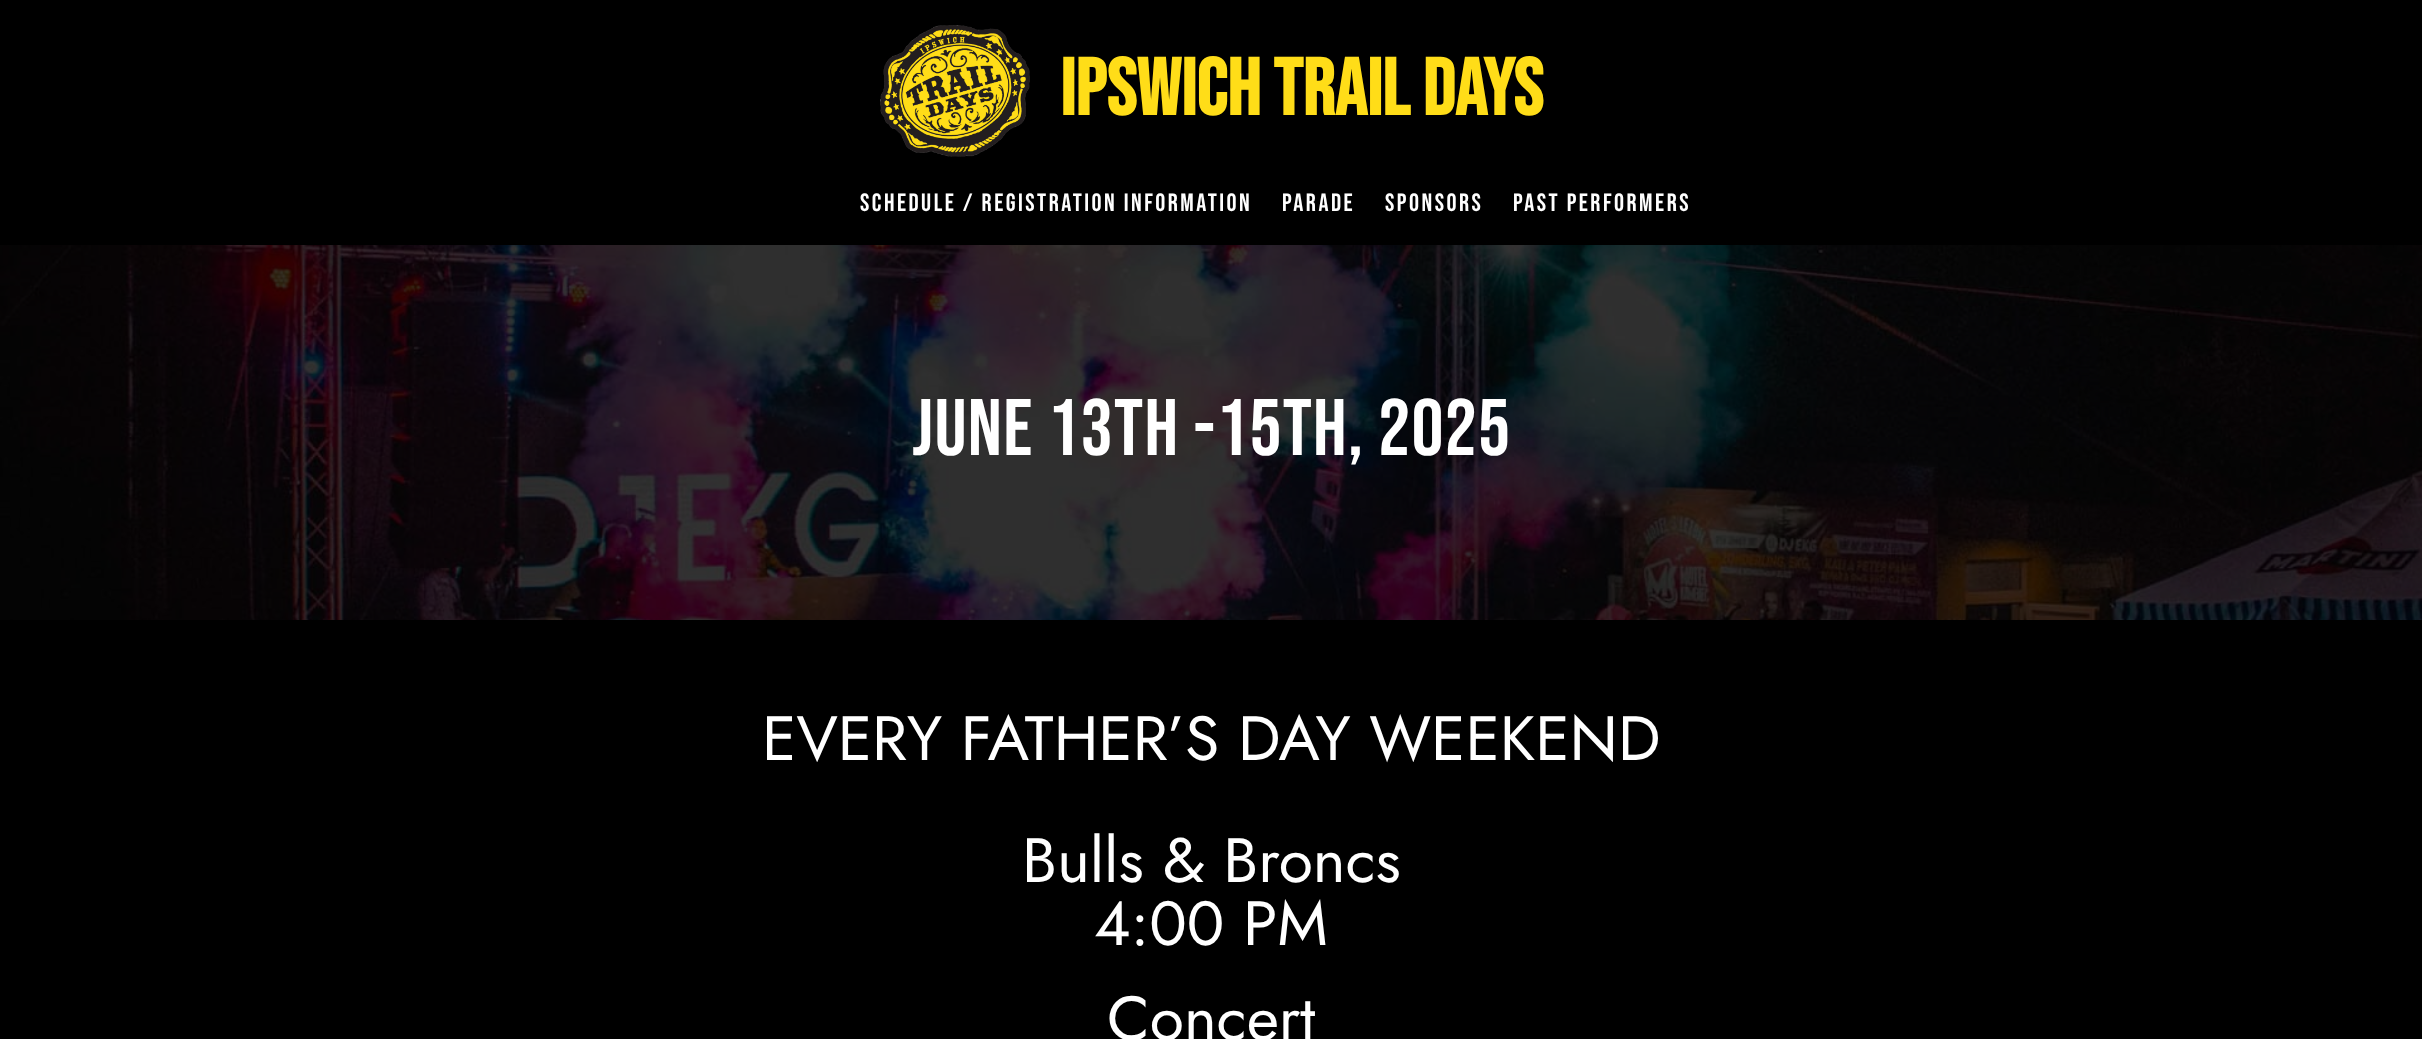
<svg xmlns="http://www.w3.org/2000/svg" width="2422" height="1039">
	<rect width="100%" height="100%" fill="#000000" />
	<image x="880" y="25" width="150" height="132" href="assets/img1.png" />
	<text x="1060" y="115" font-family="Bebas Neue" font-size="80" font-weight="700" fill="#FFDD18">Ipswich Trail Days</text>
	<g font-family="Bebas Neue" font-size="25" letter-spacing="2.5" fill="#FFFFFF">
		<text x="860" y="211">Schedule / Registration Information</text>
		<text x="1282" y="211">PARADE</text>
		<text x="1385" y="211">sponsors</text>
		<text x="1513" y="211">Past Performers</text>
	</g>
	<image x="0" y="245" width="2422" height="375" href="assets/img2.png" />
	<text x="912" y="455" font-family="Bebas Neue" font-size="80" letter-spacing="1.25" fill="#FFFFFF">June 13th -15th, 2025</text>
	<g font-family="Jost" font-size="62.5" fill="#FFFFFF">
		<text x="762" y="760">EVERY FATHER’S DAY WEEKEND</text>
		<text x="1022" y="882">Bulls &amp; Broncs</text>
		<text x="1094" y="945">4:00 PM</text>
		<text x="1107" y="1040">Concert</text>
	</g>
</svg>
